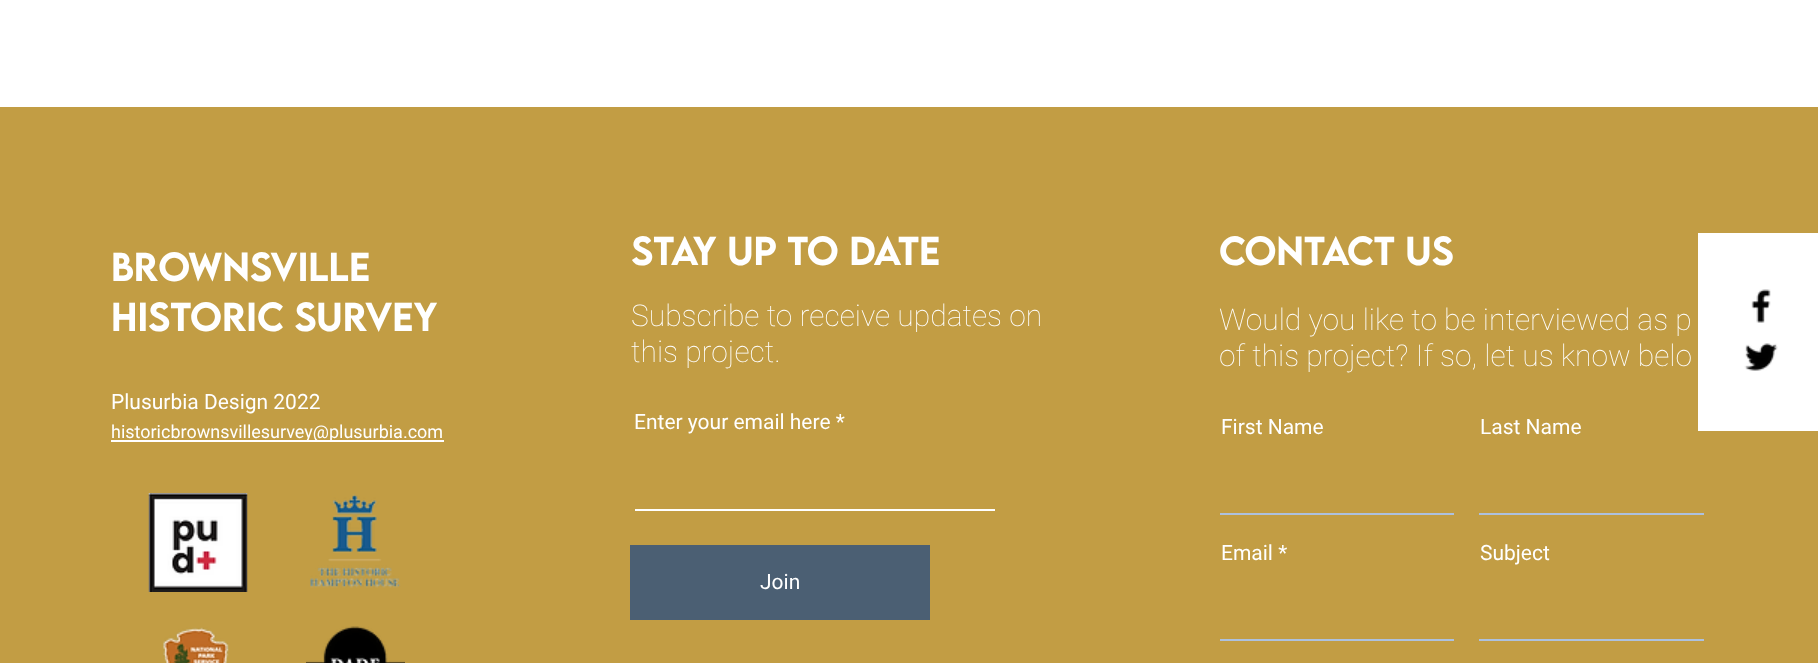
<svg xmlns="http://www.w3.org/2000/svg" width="1818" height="663">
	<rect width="100%" height="100%" fill="#FFFFFF" />
	<rect x="0" y="107" width="1818" height="556" fill="#C29D44" />
	<g font-family="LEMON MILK" font-size="36" font-weight="500" fill="#FFFFFF">
		<text x="111" y="281">Brownsville</text>
		<text x="111" y="331">Historic Survey</text>
	</g>
	<text x="111" y="409" font-family="Roboto" font-size="21" fill="#FFFFFF">Plusurbia Design 2022</text>
	<rect x="111" y="440" width="333" height="2" fill="#FFFFFF" />
	<text x="111" y="438" font-family="Roboto" font-size="18" fill="#FFFFFF">historicbrownsvillesurvey@plusurbia.com</text>
	<image x="148" y="493" width="100" height="99" href="assets/img1.png" />
	<image x="310" y="494" width="91" height="94" href="assets/img2.png" />
	<image x="163" y="627" width="66" height="36" href="assets/img3.png" />
	<image x="306" y="626" width="99" height="37" href="assets/img4.png" />
	<text x="631" y="265" font-family="LEMON MILK" font-size="36" font-weight="500" fill="#FFFFFF">Stay Up to Date</text>
	<g font-family="Roboto" font-size="30" font-weight="100" fill="#FFFFFF">
		<text x="631" y="326">Subscribe to receive updates on</text>
		<text x="631" y="362">this project.</text>
	</g>
	<text x="634" y="429" font-family="Roboto" font-size="21" fill="#FFFFFF">Enter your email here *</text>
	<rect x="635" y="509" width="360" height="2" fill="#FFFFFF" />
	<rect x="630" y="545" width="300" height="75" fill="#4B5F73" />
	<text x="760" y="589" font-family="Roboto" font-size="21" fill="#FFFFFF">Join</text>
	<text x="1219" y="265" font-family="LEMON MILK" font-size="36" font-weight="500" fill="#FFFFFF">Contact Us</text>
	<g font-family="Roboto" font-size="30" font-weight="100" fill="#FFFFFF">
		<text x="1219" y="330">Would you like to be interviewed as p</text>
		<text x="1219" y="366">of this project? If so, let us know belo</text>
	</g>
	<text x="1221" y="434" font-family="Roboto" font-size="21" fill="#FFFFFF">First Name</text>
	<rect x="1220" y="513" width="234" height="2" fill="#ADC1DF" />
	<text x="1480" y="434" font-family="Roboto" font-size="21" fill="#FFFFFF">Last Name</text>
	<rect x="1479" y="513" width="225" height="2" fill="#ADC1DF" />
	<text x="1221" y="560" font-family="Roboto" font-size="21" fill="#FFFFFF">Email *</text>
	<rect x="1220" y="639" width="234" height="2" fill="#ADC1DF" />
	<text x="1480" y="560" font-family="Roboto" font-size="21" fill="#FFFFFF">Subject</text>
	<rect x="1479" y="639" width="225" height="2" fill="#ADC1DF" />
	<rect x="1698" y="233" width="120" height="198" fill="#FFFFFF" />
	<image x="1751" y="289" width="20" height="34" href="assets/img5.png" />
	<image x="1744" y="343" width="34" height="28" href="assets/img6.png" />
</svg>
